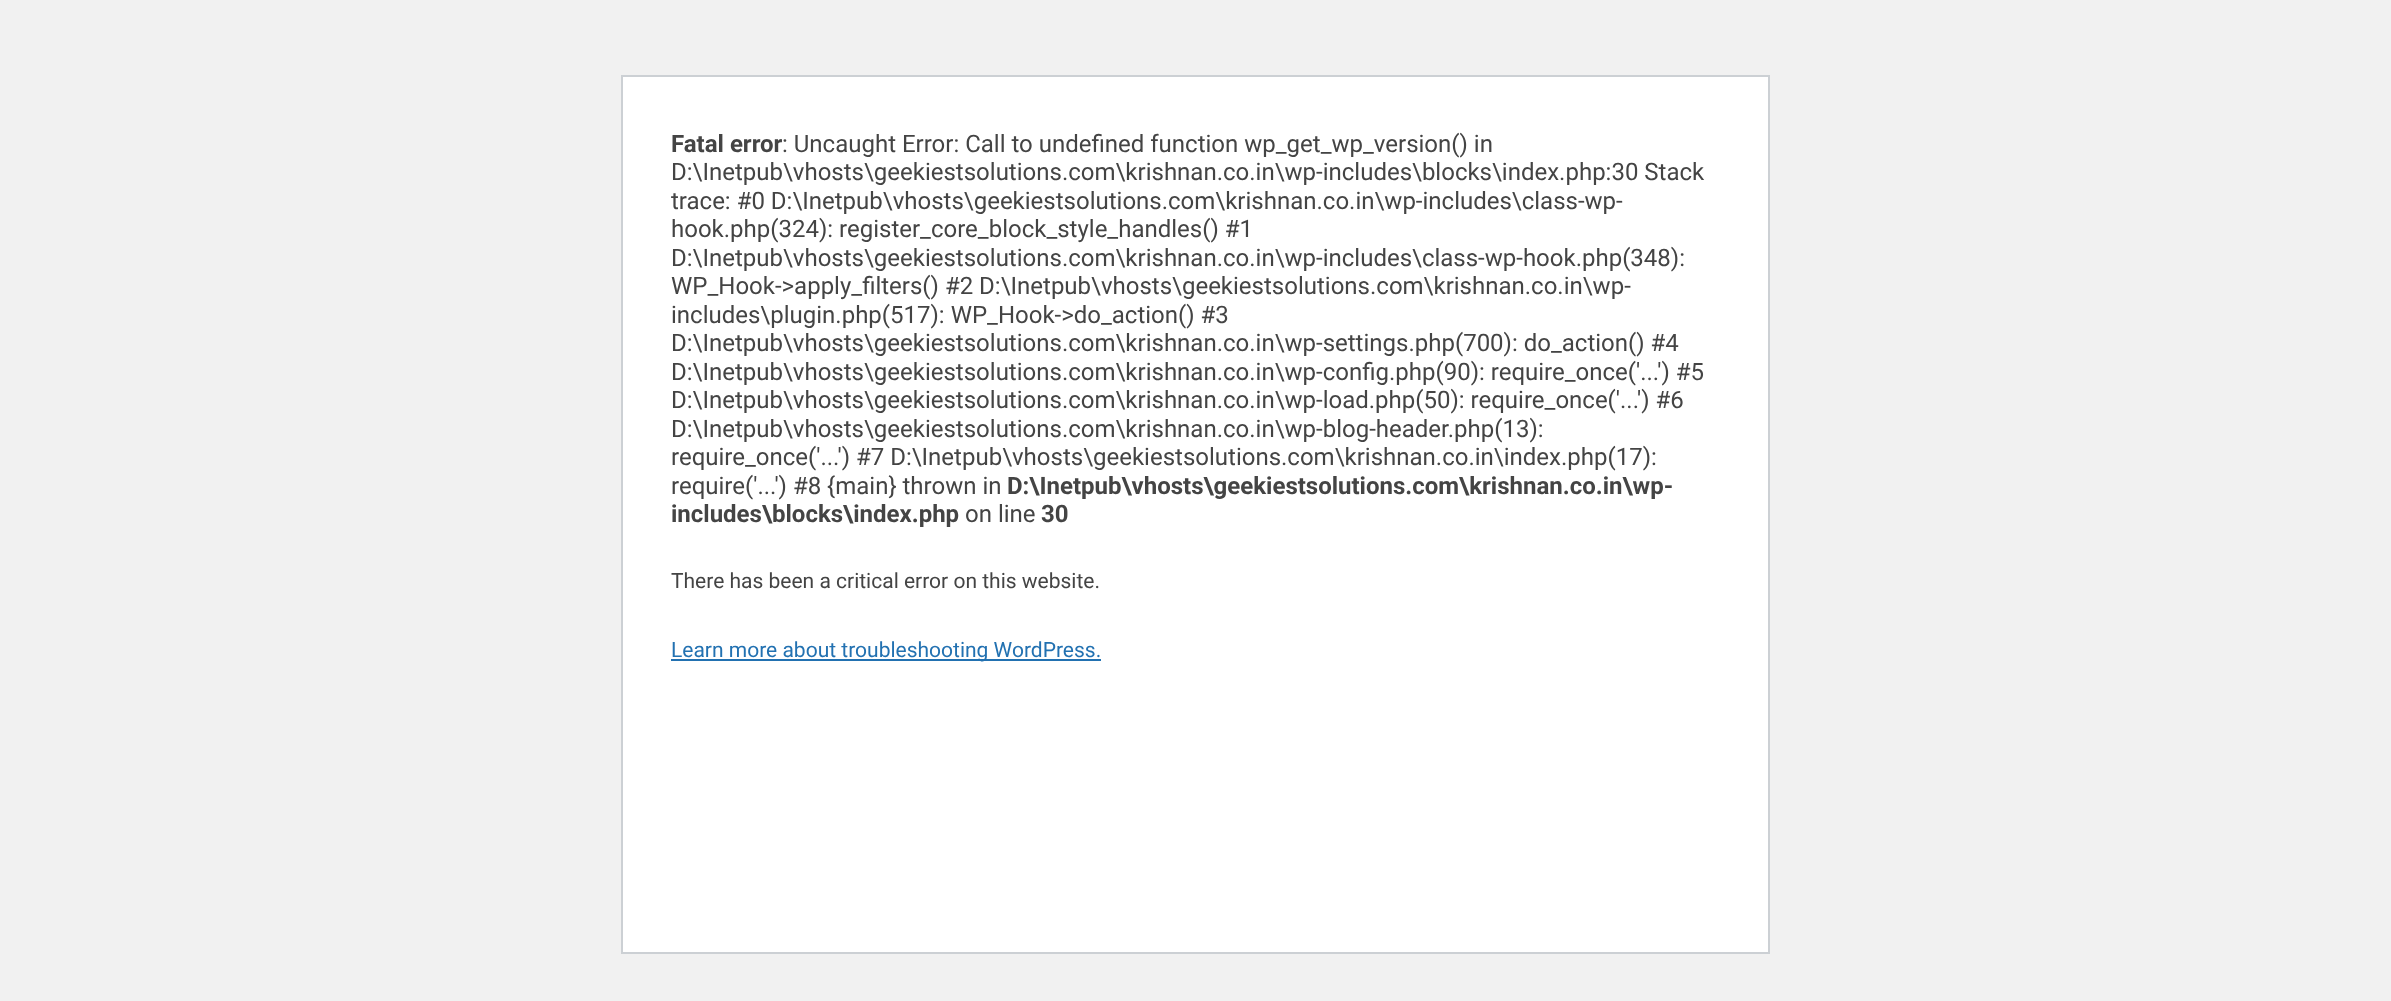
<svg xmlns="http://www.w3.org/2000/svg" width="2391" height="1001">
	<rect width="100%" height="100%" fill="#F1F1F1" />
	<rect x="622" y="76" width="1147" height="877" fill="#FFFFFF" stroke="#CCD0D4" stroke-width="2" />
	<text x="671" y="152" font-family="Roboto" font-size="24" font-weight="700" fill="#444444">Fatal error</text>
	<g font-family="Roboto" font-size="24" fill="#444444">
		<text x="782" y="152">: Uncaught Error: Call to undefined function wp_get_wp_version() in</text>
		<text x="671" y="180">D:\Inetpub\vhosts\geekiestsolutions.com\krishnan.co.in\wp-includes\blocks\index.php:30 Stack</text>
		<text x="671" y="209">trace: #0 D:\Inetpub\vhosts\geekiestsolutions.com\krishnan.co.in\wp-includes\class-wp-</text>
		<text x="671" y="237">hook.php(324): register_core_block_style_handles() #1</text>
		<text x="671" y="266">D:\Inetpub\vhosts\geekiestsolutions.com\krishnan.co.in\wp-includes\class-wp-hook.php(348):</text>
		<text x="671" y="294">WP_Hook-&gt;apply_filters() #2 D:\Inetpub\vhosts\geekiestsolutions.com\krishnan.co.in\wp-</text>
		<text x="671" y="323">includes\plugin.php(517): WP_Hook-&gt;do_action() #3</text>
		<text x="671" y="351">D:\Inetpub\vhosts\geekiestsolutions.com\krishnan.co.in\wp-settings.php(700): do_action() #4</text>
		<text x="671" y="380">D:\Inetpub\vhosts\geekiestsolutions.com\krishnan.co.in\wp-config.php(90): require_once('...') #5</text>
		<text x="671" y="408">D:\Inetpub\vhosts\geekiestsolutions.com\krishnan.co.in\wp-load.php(50): require_once('...') #6</text>
		<text x="671" y="437">D:\Inetpub\vhosts\geekiestsolutions.com\krishnan.co.in\wp-blog-header.php(13):</text>
		<text x="671" y="465">require_once('...') #7 D:\Inetpub\vhosts\geekiestsolutions.com\krishnan.co.in\index.php(17):</text>
		<text x="671" y="494">require('...') #8 {main} thrown in</text>
	</g>
	<g font-family="Roboto" font-size="24" font-weight="700" fill="#444444">
		<text x="1007" y="494">D:\Inetpub\vhosts\geekiestsolutions.com\krishnan.co.in\wp-</text>
		<text x="671" y="522">includes\blocks\index.php</text>
	</g>
	<text x="965" y="522" font-family="Roboto" font-size="24" fill="#444444">on line</text>
	<text x="1041" y="522" font-family="Roboto" font-size="24" font-weight="700" fill="#444444">30</text>
	<text x="671" y="588" font-family="Roboto" font-size="21" fill="#444444">There has been a critical error on this website.</text>
	<rect x="671" y="659" width="430" height="2" fill="#2271B1" />
	<text x="671" y="657" font-family="Roboto" font-size="21" fill="#2271B1">Learn more about troubleshooting WordPress.</text>
</svg>
